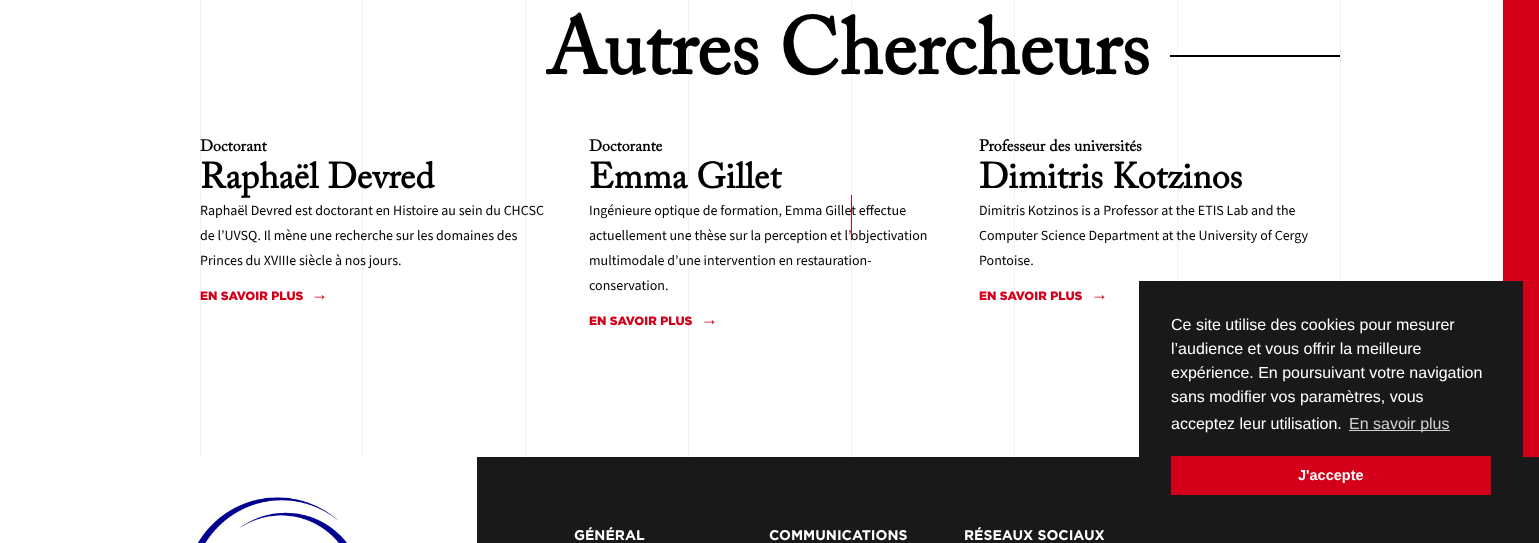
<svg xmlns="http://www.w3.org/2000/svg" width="1539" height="543">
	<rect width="100%" height="100%" fill="#FFFFFF" />
	<rect x="200" y="0" width="1" height="457" fill="#F2F2F2" />
	<rect x="362" y="0" width="1" height="457" fill="#F2F2F2" />
	<rect x="525" y="0" width="1" height="457" fill="#F2F2F2" />
	<rect x="688" y="0" width="1" height="457" fill="#F2F2F2" />
	<rect x="851" y="0" width="1" height="457" fill="#F2F2F2" />
	<rect x="851" y="195" width="1" height="45" fill="#D4001A" />
	<rect x="1014" y="0" width="1" height="457" fill="#F2F2F2" />
	<rect x="1177" y="0" width="1" height="281" fill="#F2F2F2" />
	<rect x="1340" y="0" width="1" height="281" fill="#F2F2F2" />
	<rect x="1503" y="0" width="36" height="457" fill="#D4001A" />
	<text x="546" y="74" font-family="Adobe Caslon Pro" font-size="80" font-weight="700" fill="#000000">Autres Chercheurs</text>
	<rect x="1170" y="55" width="170" height="2" fill="#000000" />
	<text x="200" y="151" font-family="Adobe Caslon Pro" font-size="16" font-weight="700" fill="#000000">Doctorant</text>
	<text x="200" y="188" font-family="Adobe Caslon Pro" font-size="36" font-weight="700" fill="#000000">Raphaël Devred</text>
	<g font-family="Source Sans Pro" font-size="14" fill="#000000">
		<text x="200" y="215">Raphaël Devred est doctorant en Histoire au sein du CHCSC</text>
		<text x="200" y="240">de l’UVSQ. Il mène une recherche sur les domaines des</text>
		<text x="200" y="265">Princes du XVIIIe siècle à nos jours.</text>
	</g>
	<text x="200" y="300" font-family="Gotham" font-size="12" font-weight="900" fill="#D4001A">EN SAVOIR PLUS</text>
	<text x="311" y="300" font-family="Liberation Sans" font-size="17" font-weight="700" fill="#D4001A">→</text>
	<text x="589" y="151" font-family="Adobe Caslon Pro" font-size="16" font-weight="700" fill="#000000">Doctorante</text>
	<text x="589" y="188" font-family="Adobe Caslon Pro" font-size="36" font-weight="700" fill="#000000">Emma Gillet</text>
	<g font-family="Source Sans Pro" font-size="14" fill="#000000">
		<text x="589" y="215">Ingénieure optique de formation, Emma Gillet effectue</text>
		<text x="589" y="240">actuellement une thèse sur la perception et l’objectivation</text>
		<text x="589" y="265">multimodale d’une intervention en restauration-</text>
		<text x="589" y="290">conservation.</text>
	</g>
	<text x="589" y="325" font-family="Gotham" font-size="12" font-weight="900" fill="#D4001A">EN SAVOIR PLUS</text>
	<text x="701" y="325" font-family="Liberation Sans" font-size="17" font-weight="700" fill="#D4001A">→</text>
	<text x="979" y="151" font-family="Adobe Caslon Pro" font-size="16" font-weight="700" fill="#000000">Professeur des universités</text>
	<text x="979" y="188" font-family="Adobe Caslon Pro" font-size="36" font-weight="700" fill="#000000">Dimitris Kotzinos</text>
	<g font-family="Source Sans Pro" font-size="14" fill="#000000">
		<text x="979" y="215">Dimitris Kotzinos is a Professor at the ETIS Lab and the</text>
		<text x="979" y="240">Computer Science Department at the University of Cergy</text>
		<text x="979" y="265">Pontoise.</text>
	</g>
	<text x="979" y="300" font-family="Gotham" font-size="12" font-weight="900" fill="#D4001A">EN SAVOIR PLUS</text>
	<text x="1091" y="300" font-family="Liberation Sans" font-size="17" font-weight="700" fill="#D4001A">→</text>
	<rect x="477" y="457" width="1062" height="86" fill="#191919" />
	<image x="194" y="497" width="155" height="46" href="assets/img1.png" />
	<g font-family="Gotham" font-size="14" font-weight="700" fill="#FFFFFF">
		<text x="574" y="540">GÉNÉRAL</text>
		<text x="769" y="540">COMMUNICATIONS</text>
		<text x="964" y="540">RÉSEAUX SOCIAUX</text>
	</g>
	<rect x="1139" y="281" width="384" height="176" fill="#191919" />
	<g font-family="Liberation Sans" font-size="16" fill="#FFFFFF">
		<text x="1171" y="330">Ce site utilise des cookies pour mesurer</text>
		<text x="1171" y="354">l’audience et vous offrir la meilleure</text>
		<text x="1171" y="378">expérience. En poursuivant votre navigation</text>
		<text x="1171" y="402">sans modifier vos paramètres, vous</text>
		<text x="1171" y="429">acceptez leur utilisation.</text>
	</g>
	<rect x="1349" y="430" width="101" height="1" fill="#D1D1D1" />
	<text x="1349" y="429" font-family="Liberation Sans" font-size="16" fill="#D1D1D1">En savoir plus</text>
	<rect x="1171" y="456" width="320" height="39" fill="#D4001A" />
	<text x="1298" y="480" font-family="Liberation Sans" font-size="14.5" font-weight="700" fill="#FFFFFF">J'accepte</text>
</svg>
